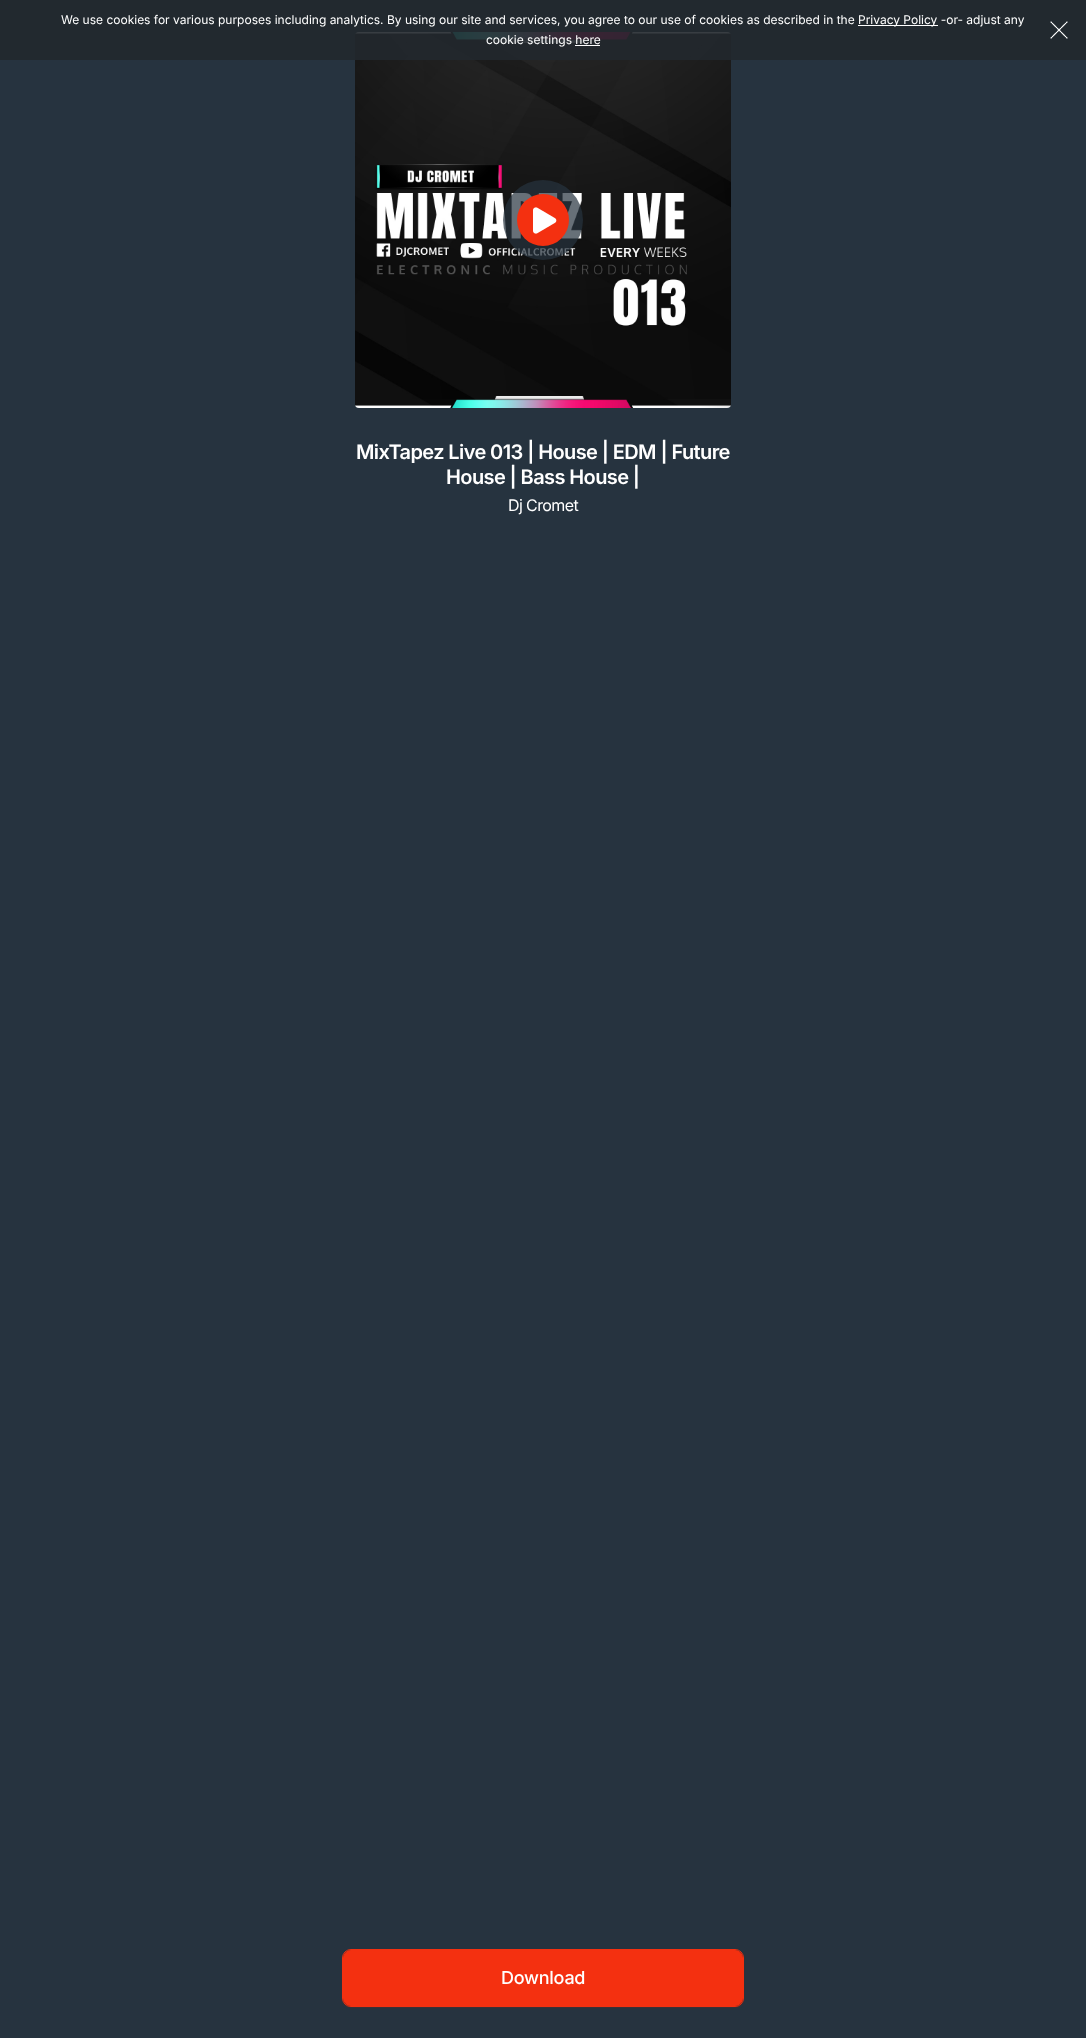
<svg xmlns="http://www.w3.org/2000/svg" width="1086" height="2038">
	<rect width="100%" height="100%" fill="#26333F" />
	<image x="355" y="32" width="376" height="376" href="assets/img2.png" />
	<rect x="0" y="0" width="1086" height="60" fill="#22282E" fill-opacity="0.9" />
	<text x="61" y="24" font-family="Inter" font-size="12" fill="#FFFFFF">We use cookies for various purposes including analytics. By using our site and services, you agree to our use of cookies as described in the</text>
	<rect x="858" y="25" width="80" height="1" fill="#FFFFFF" />
	<g font-family="Inter" font-size="12" fill="#FFFFFF">
		<text x="858" y="24">Privacy Policy -or- adjust any</text>
		<text x="486" y="44">cookie settings here</text>
	</g>
	<rect x="575" y="45" width="25" height="1" fill="#FFFFFF" />
	<image x="1050" y="21" width="18" height="18" href="assets/img1.png" />
	<circle cx="543" cy="220" r="40" fill="#26333F" fill-opacity="0.7" />
	<circle cx="543" cy="220" r="26" fill="#F43010" />
	<image x="533" y="207" width="24" height="27" href="assets/img3.png" />
	<g font-family="Inter" font-size="20" font-weight="600" letter-spacing="-0.6" fill="#FFFFFF">
		<text x="356" y="459">MixTapez Live 013 | House | EDM | Future</text>
		<text x="446" y="484">House | Bass House |</text>
	</g>
	<text x="508" y="511" font-family="Inter" font-size="16" letter-spacing="-0.6" fill="#FFFFFF">Dj Cromet</text>
	<rect x="343" y="1951" width="400" height="56" rx="8" fill="#A8210B" fill-opacity="0.5" filter="blur(1px)" />
	<rect x="342.5" y="1949.5" width="401" height="57" rx="8.5" fill="none" stroke="#F43010" />
	<rect x="343.5" y="1950.5" width="399" height="55" rx="7.5" fill="#F43010" stroke="#F43010" />
	<text x="501" y="1984" font-family="Inter" font-size="18" font-weight="500" letter-spacing="-0.25" fill="#FFFFFF">Download</text>
</svg>
